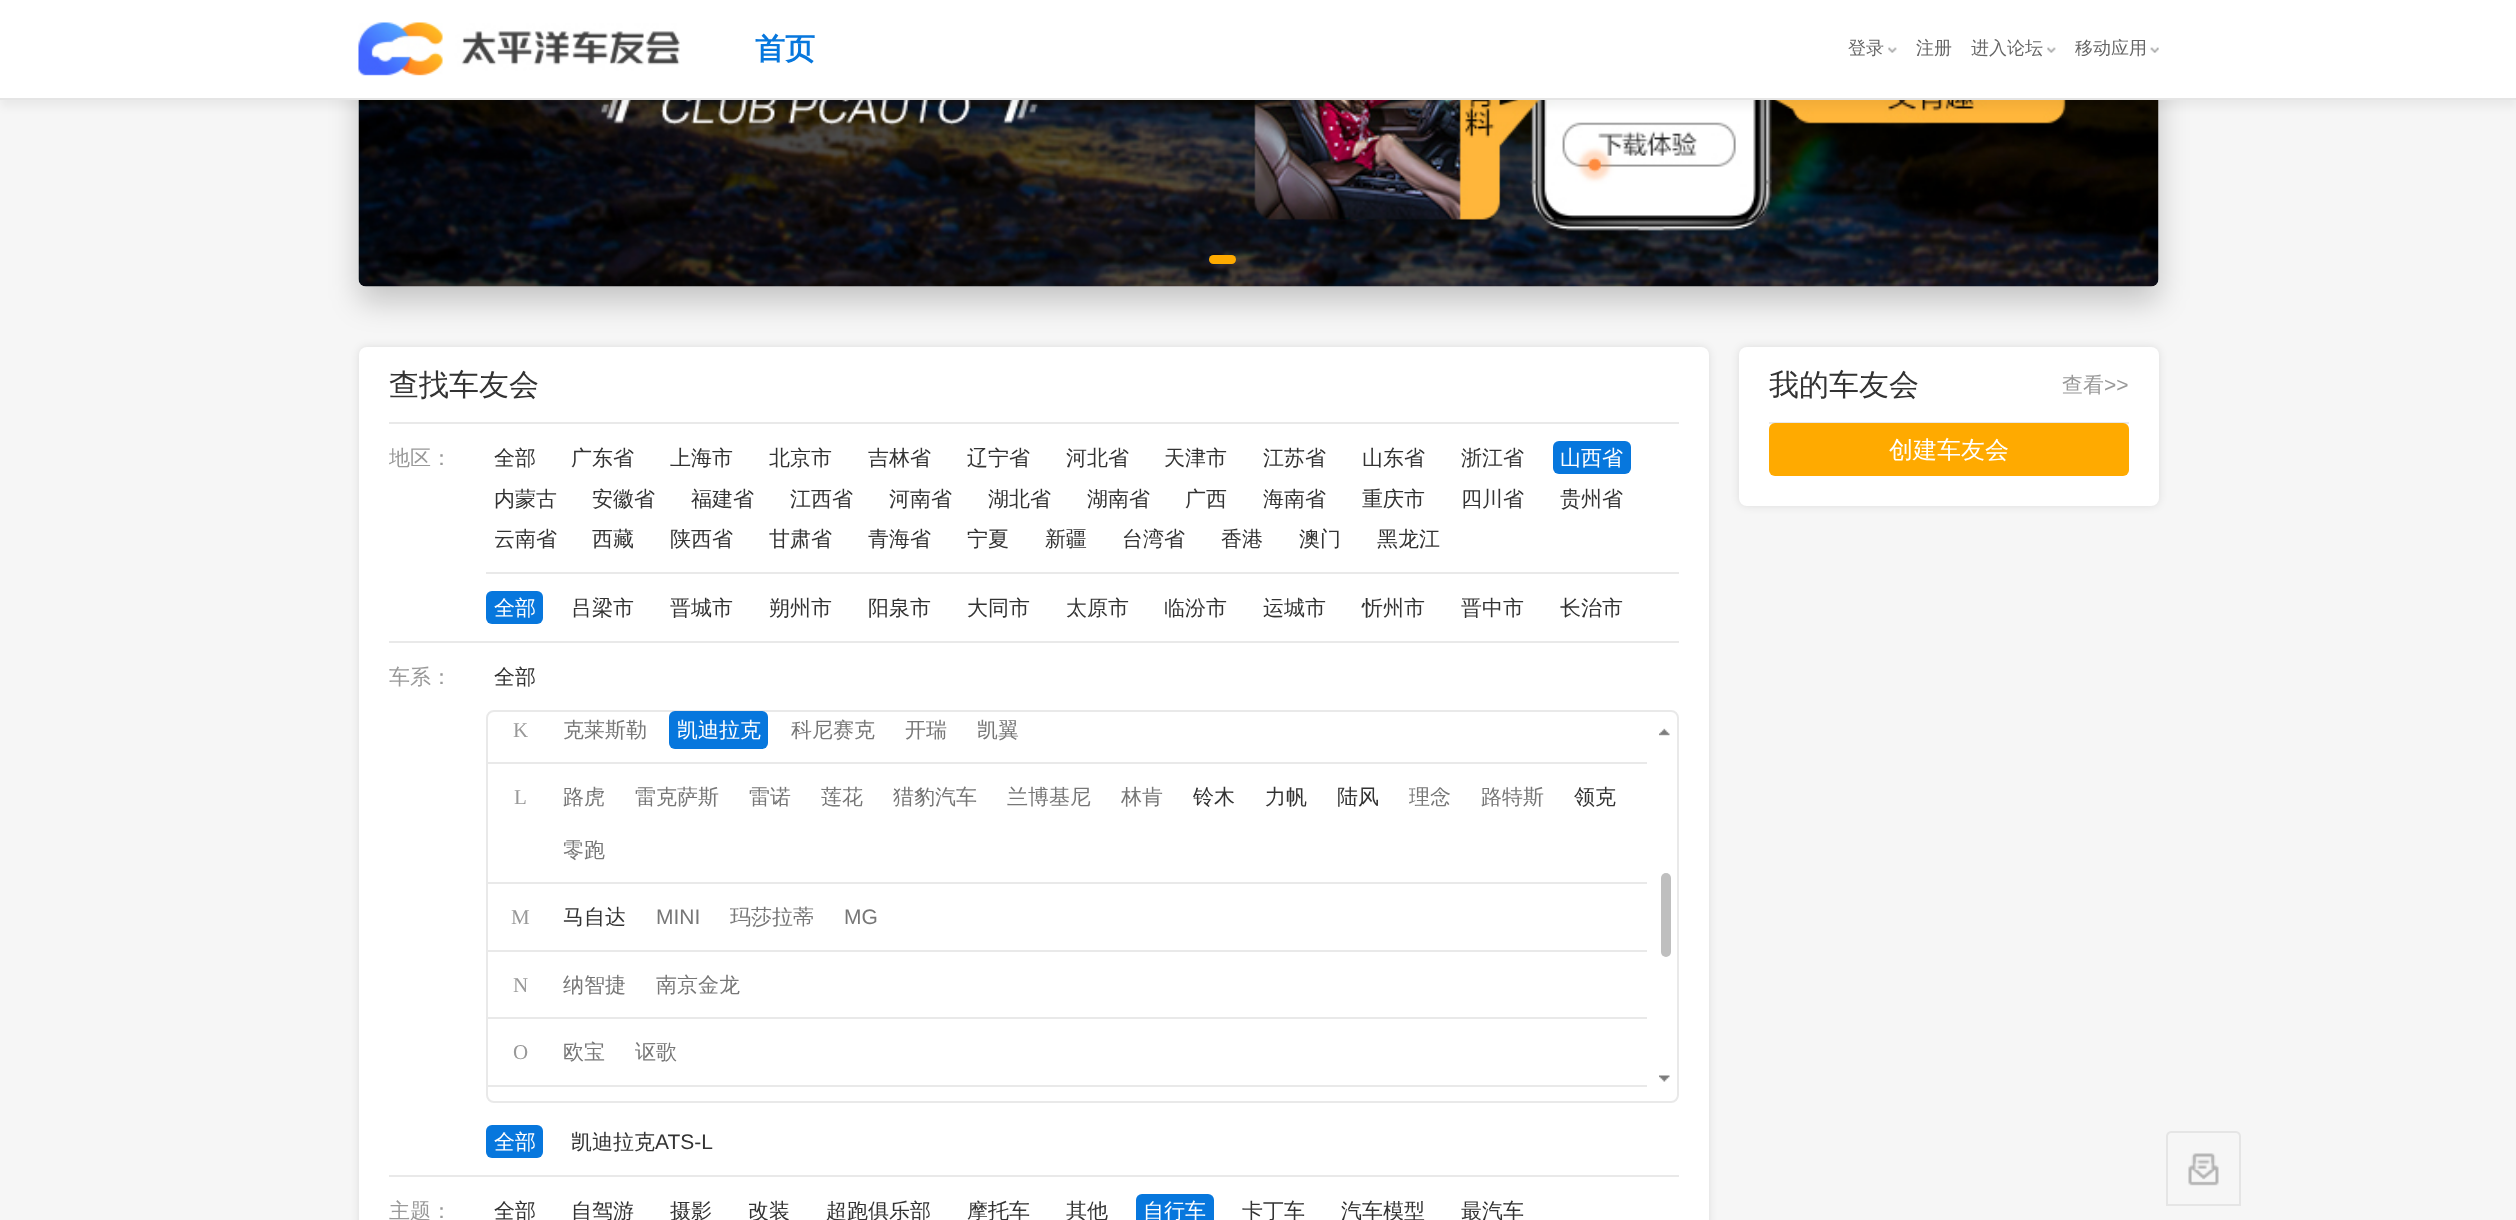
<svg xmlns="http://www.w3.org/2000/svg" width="2516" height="1220">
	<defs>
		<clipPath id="clip1"><rect x="389" y="423" width="1290" height="209" /></clipPath>
	</defs>
	<rect width="100%" height="100%" fill="#F6F6F6" />
	<rect x="359" y="347" width="1350" height="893" rx="8" fill="#000000" fill-opacity="0.1" filter="blur(4px)" />
	<rect x="359" y="347" width="1350" height="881" rx="8" fill="#FFFFFF" />
	<rect x="1739" y="347" width="420" height="159" rx="8" fill="#000000" fill-opacity="0.1" filter="blur(4px)" />
	<rect x="1739" y="347" width="420" height="159" rx="8" fill="#FFFFFF" />
	<rect x="359" y="-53" width="1800" height="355" rx="8" fill="#000000" fill-opacity="0.2" filter="blur(15px)" />
	<image x="358" y="100" width="1801" height="187" href="assets/img1.png" />
	<rect x="1209" y="255" width="27" height="9" rx="4.5" fill="#FFAA00" />
	<rect x="0" y="8" width="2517" height="99" fill="#000000" fill-opacity="0.05" filter="blur(4px)" />
	<rect x="0" y="0" width="2516" height="98" fill="#FFFFFF" />
	<rect x="0" y="98" width="2516" height="2" fill="#E5E5E5" />
	<image x="358" y="22" width="322" height="54" href="assets/img2.png" />
	<text x="755" y="59" font-family="WenQuanYi Zen Hei" font-size="30" font-weight="700" fill="#0777DD">首页</text>
	<text x="1848" y="54" font-family="WenQuanYi Zen Hei" font-size="18" font-weight="500" fill="#666666">登录</text>
	<image x="1888" y="47" width="9" height="6" href="assets/img3.png" />
	<g font-family="WenQuanYi Zen Hei" font-size="18" font-weight="500" fill="#666666">
		<text x="1916" y="54">注册</text>
		<text x="1971" y="54">进入论坛</text>
	</g>
	<image x="2047" y="47" width="9" height="6" href="assets/img4.png" />
	<text x="2075" y="54" font-family="WenQuanYi Zen Hei" font-size="18" font-weight="500" fill="#666666">移动应用</text>
	<image x="2150" y="47" width="9" height="6" href="assets/img5.png" />
	<text x="389" y="395" font-family="WenQuanYi Zen Hei" font-size="30" font-weight="500" fill="#333333">查找车友会</text>
	<rect x="389" y="422" width="1290" height="2" fill="#E9E9E9" />
	<g clip-path="url(#clip1)">
		<text x="389" y="465" font-family="WenQuanYi Zen Hei" font-size="21" font-weight="500" fill="#999999">地区：</text>
	</g>
	<g font-family="WenQuanYi Zen Hei" font-size="21" font-weight="500" fill="#333333">
		<text x="494" y="465">全部</text>
		<text x="571" y="465">广东省</text>
		<text x="670" y="465">上海市</text>
		<text x="769" y="465">北京市</text>
		<text x="868" y="465">吉林省</text>
		<text x="967" y="465">辽宁省</text>
		<text x="1066" y="465">河北省</text>
		<text x="1164" y="465">天津市</text>
		<text x="1263" y="465">江苏省</text>
		<text x="1362" y="465">山东省</text>
		<text x="1461" y="465">浙江省</text>
	</g>
	<rect x="1553" y="441" width="78" height="33" rx="6" fill="#0777DD" />
	<text x="1560" y="465" font-family="WenQuanYi Zen Hei" font-size="21" font-weight="500" fill="#FFFFFF">山西省</text>
	<g font-family="WenQuanYi Zen Hei" font-size="21" font-weight="500" fill="#333333">
		<text x="494" y="506">内蒙古</text>
		<text x="592" y="506">安徽省</text>
		<text x="691" y="506">福建省</text>
		<text x="790" y="506">江西省</text>
		<text x="889" y="506">河南省</text>
		<text x="988" y="506">湖北省</text>
		<text x="1087" y="506">湖南省</text>
		<text x="1185" y="506">广西</text>
		<text x="1263" y="506">海南省</text>
		<text x="1362" y="506">重庆市</text>
		<text x="1461" y="506">四川省</text>
		<text x="1560" y="506">贵州省</text>
		<text x="494" y="546">云南省</text>
		<text x="592" y="546">西藏</text>
		<text x="670" y="546">陕西省</text>
		<text x="769" y="546">甘肃省</text>
		<text x="868" y="546">青海省</text>
		<text x="967" y="546">宁夏</text>
		<text x="1045" y="546">新疆</text>
		<text x="1122" y="546">台湾省</text>
		<text x="1221" y="546">香港</text>
		<text x="1299" y="546">澳门</text>
		<text x="1377" y="546">黑龙江</text>
	</g>
	<rect x="486" y="572" width="1193" height="2" fill="#E9E9E9" />
	<rect x="486" y="591" width="57" height="33" rx="6" fill="#0777DD" />
	<text x="494" y="615" font-family="WenQuanYi Zen Hei" font-size="21" font-weight="500" fill="#FFFFFF">全部</text>
	<g font-family="WenQuanYi Zen Hei" font-size="21" font-weight="500" fill="#333333">
		<text x="571" y="615">吕梁市</text>
		<text x="670" y="615">晋城市</text>
		<text x="769" y="615">朔州市</text>
		<text x="868" y="615">阳泉市</text>
		<text x="967" y="615">大同市</text>
		<text x="1066" y="615">太原市</text>
		<text x="1164" y="615">临汾市</text>
		<text x="1263" y="615">运城市</text>
		<text x="1362" y="615">忻州市</text>
		<text x="1461" y="615">晋中市</text>
		<text x="1560" y="615">长治市</text>
	</g>
	<rect x="389" y="641" width="1290" height="2" fill="#E9E9E9" />
	<text x="389" y="684" font-family="WenQuanYi Zen Hei" font-size="21" font-weight="500" fill="#999999">车系：</text>
	<text x="494" y="684" font-family="WenQuanYi Zen Hei" font-size="21" font-weight="500" fill="#333333">全部</text>
	<rect x="487" y="711" width="1191" height="391" rx="7" fill="none" stroke="#E9E9E9" stroke-width="2" />
	<text x="513" y="737" font-family="Liberation Serif" font-size="21" fill="#999999">K</text>
	<text x="563" y="737" font-family="WenQuanYi Zen Hei" font-size="21" font-weight="500" fill="#777777">克莱斯勒</text>
	<rect x="669" y="711" width="99" height="38" rx="6" fill="#0777DD" />
	<text x="677" y="737" font-family="WenQuanYi Zen Hei" font-size="21" font-weight="500" fill="#FFFFFF">凯迪拉克</text>
	<g font-family="WenQuanYi Zen Hei" font-size="21" font-weight="500" fill="#777777">
		<text x="791" y="737">科尼赛克</text>
		<text x="905" y="737">开瑞</text>
		<text x="977" y="737">凯翼</text>
	</g>
	<rect x="488" y="762" width="1159" height="2" fill="#E9E9E9" />
	<text x="514" y="804" font-family="Liberation Serif" font-size="21" fill="#999999">L</text>
	<g font-family="WenQuanYi Zen Hei" font-size="21" font-weight="500" fill="#777777">
		<text x="563" y="804">路虎</text>
		<text x="635" y="804">雷克萨斯</text>
		<text x="749" y="804">雷诺</text>
		<text x="821" y="804">莲花</text>
		<text x="893" y="804">猎豹汽车</text>
		<text x="1007" y="804">兰博基尼</text>
		<text x="1121" y="804">林肯</text>
	</g>
	<g font-family="WenQuanYi Zen Hei" font-size="21" font-weight="500" fill="#333333">
		<text x="1193" y="804">铃木</text>
		<text x="1265" y="804">力帆</text>
		<text x="1337" y="804">陆风</text>
	</g>
	<g font-family="WenQuanYi Zen Hei" font-size="21" font-weight="500" fill="#777777">
		<text x="1409" y="804">理念</text>
		<text x="1481" y="804">路特斯</text>
	</g>
	<text x="1574" y="804" font-family="WenQuanYi Zen Hei" font-size="21" font-weight="500" fill="#333333">领克</text>
	<text x="563" y="857" font-family="WenQuanYi Zen Hei" font-size="21" font-weight="500" fill="#777777">零跑</text>
	<rect x="488" y="882" width="1159" height="2" fill="#E9E9E9" />
	<text x="511" y="924" font-family="Liberation Serif" font-size="21" fill="#999999">M</text>
	<text x="563" y="924" font-family="WenQuanYi Zen Hei" font-size="21" font-weight="500" fill="#333333">马自达</text>
	<text x="656" y="924" font-family="Liberation Sans" font-size="21" fill="#777777">MINI</text>
	<text x="730" y="924" font-family="WenQuanYi Zen Hei" font-size="21" font-weight="500" fill="#777777">玛莎拉蒂</text>
	<text x="844" y="924" font-family="Liberation Sans" font-size="21" fill="#777777">MG</text>
	<rect x="488" y="950" width="1159" height="2" fill="#E9E9E9" />
	<text x="513" y="992" font-family="Liberation Serif" font-size="21" fill="#999999">N</text>
	<g font-family="WenQuanYi Zen Hei" font-size="21" font-weight="500" fill="#777777">
		<text x="563" y="992">纳智捷</text>
		<text x="656" y="992">南京金龙</text>
	</g>
	<rect x="488" y="1017" width="1159" height="2" fill="#E9E9E9" />
	<text x="513" y="1059" font-family="Liberation Serif" font-size="21" fill="#999999">O</text>
	<g font-family="WenQuanYi Zen Hei" font-size="21" font-weight="500" fill="#777777">
		<text x="563" y="1059">欧宝</text>
		<text x="635" y="1059">讴歌</text>
	</g>
	<rect x="488" y="1085" width="1159" height="2" fill="#E9E9E9" />
	<image x="1659" y="728" width="11" height="8" href="assets/img6.png" />
	<rect x="1661" y="873" width="10" height="84" rx="5" fill="#BFBFBF" />
	<image x="1659" y="1075" width="11" height="7" href="assets/img7.png" />
	<rect x="486" y="1125" width="57" height="33" rx="6" fill="#0777DD" />
	<text x="494" y="1149" font-family="WenQuanYi Zen Hei" font-size="21" font-weight="500" fill="#FFFFFF">全部</text>
	<text x="571" y="1149" font-family="WenQuanYi Zen Hei" font-size="21" font-weight="500" fill="#333333">凯迪拉克</text>
	<text x="655" y="1149" font-family="Liberation Sans" font-size="21" fill="#333333">ATS-L</text>
	<rect x="389" y="1175" width="1290" height="2" fill="#E9E9E9" />
	<text x="389" y="1218" font-family="WenQuanYi Zen Hei" font-size="21" font-weight="500" fill="#999999">主题：</text>
	<g font-family="WenQuanYi Zen Hei" font-size="21" font-weight="500" fill="#333333">
		<text x="494" y="1218">全部</text>
		<text x="571" y="1218">自驾游</text>
		<text x="670" y="1218">摄影</text>
		<text x="748" y="1218">改装</text>
		<text x="826" y="1218">超跑俱乐部</text>
		<text x="967" y="1218">摩托车</text>
		<text x="1066" y="1218">其他</text>
	</g>
	<rect x="1136" y="1194" width="78" height="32" rx="6" fill="#0777DD" />
	<text x="1143" y="1218" font-family="WenQuanYi Zen Hei" font-size="21" font-weight="500" fill="#FFFFFF">自行车</text>
	<g font-family="WenQuanYi Zen Hei" font-size="21" font-weight="500" fill="#333333">
		<text x="1242" y="1218">卡丁车</text>
		<text x="1341" y="1218">汽车模型</text>
		<text x="1461" y="1218">最汽车</text>
	</g>
	<rect x="1769" y="422" width="360" height="2" fill="#E9E9E9" />
	<text x="1769" y="395" font-family="WenQuanYi Zen Hei" font-size="30" font-weight="500" fill="#333333">我的车友会</text>
	<text x="2062" y="392" font-family="WenQuanYi Zen Hei" font-size="21" font-weight="500" fill="#999999">查看</text>
	<text x="2104" y="392" font-family="Liberation Sans" font-size="21" fill="#999999">&gt;&gt;</text>
	<rect x="1769" y="423" width="360" height="53" rx="6" fill="#FFAA00" />
	<text x="1889" y="458" font-family="WenQuanYi Zen Hei" font-size="24" font-weight="500" fill="#FFFFFF">创建车友会</text>
	<path d="M2171 1132H2236C2238 1132 2240 1134 2240 1136V1205H2167V1136C2167 1134 2169 1132 2171 1132Z" fill="none" stroke="#E5E5E5" stroke-width="2" />
	<image x="2188" y="1153" width="31" height="33" href="assets/img8.png" />
</svg>
